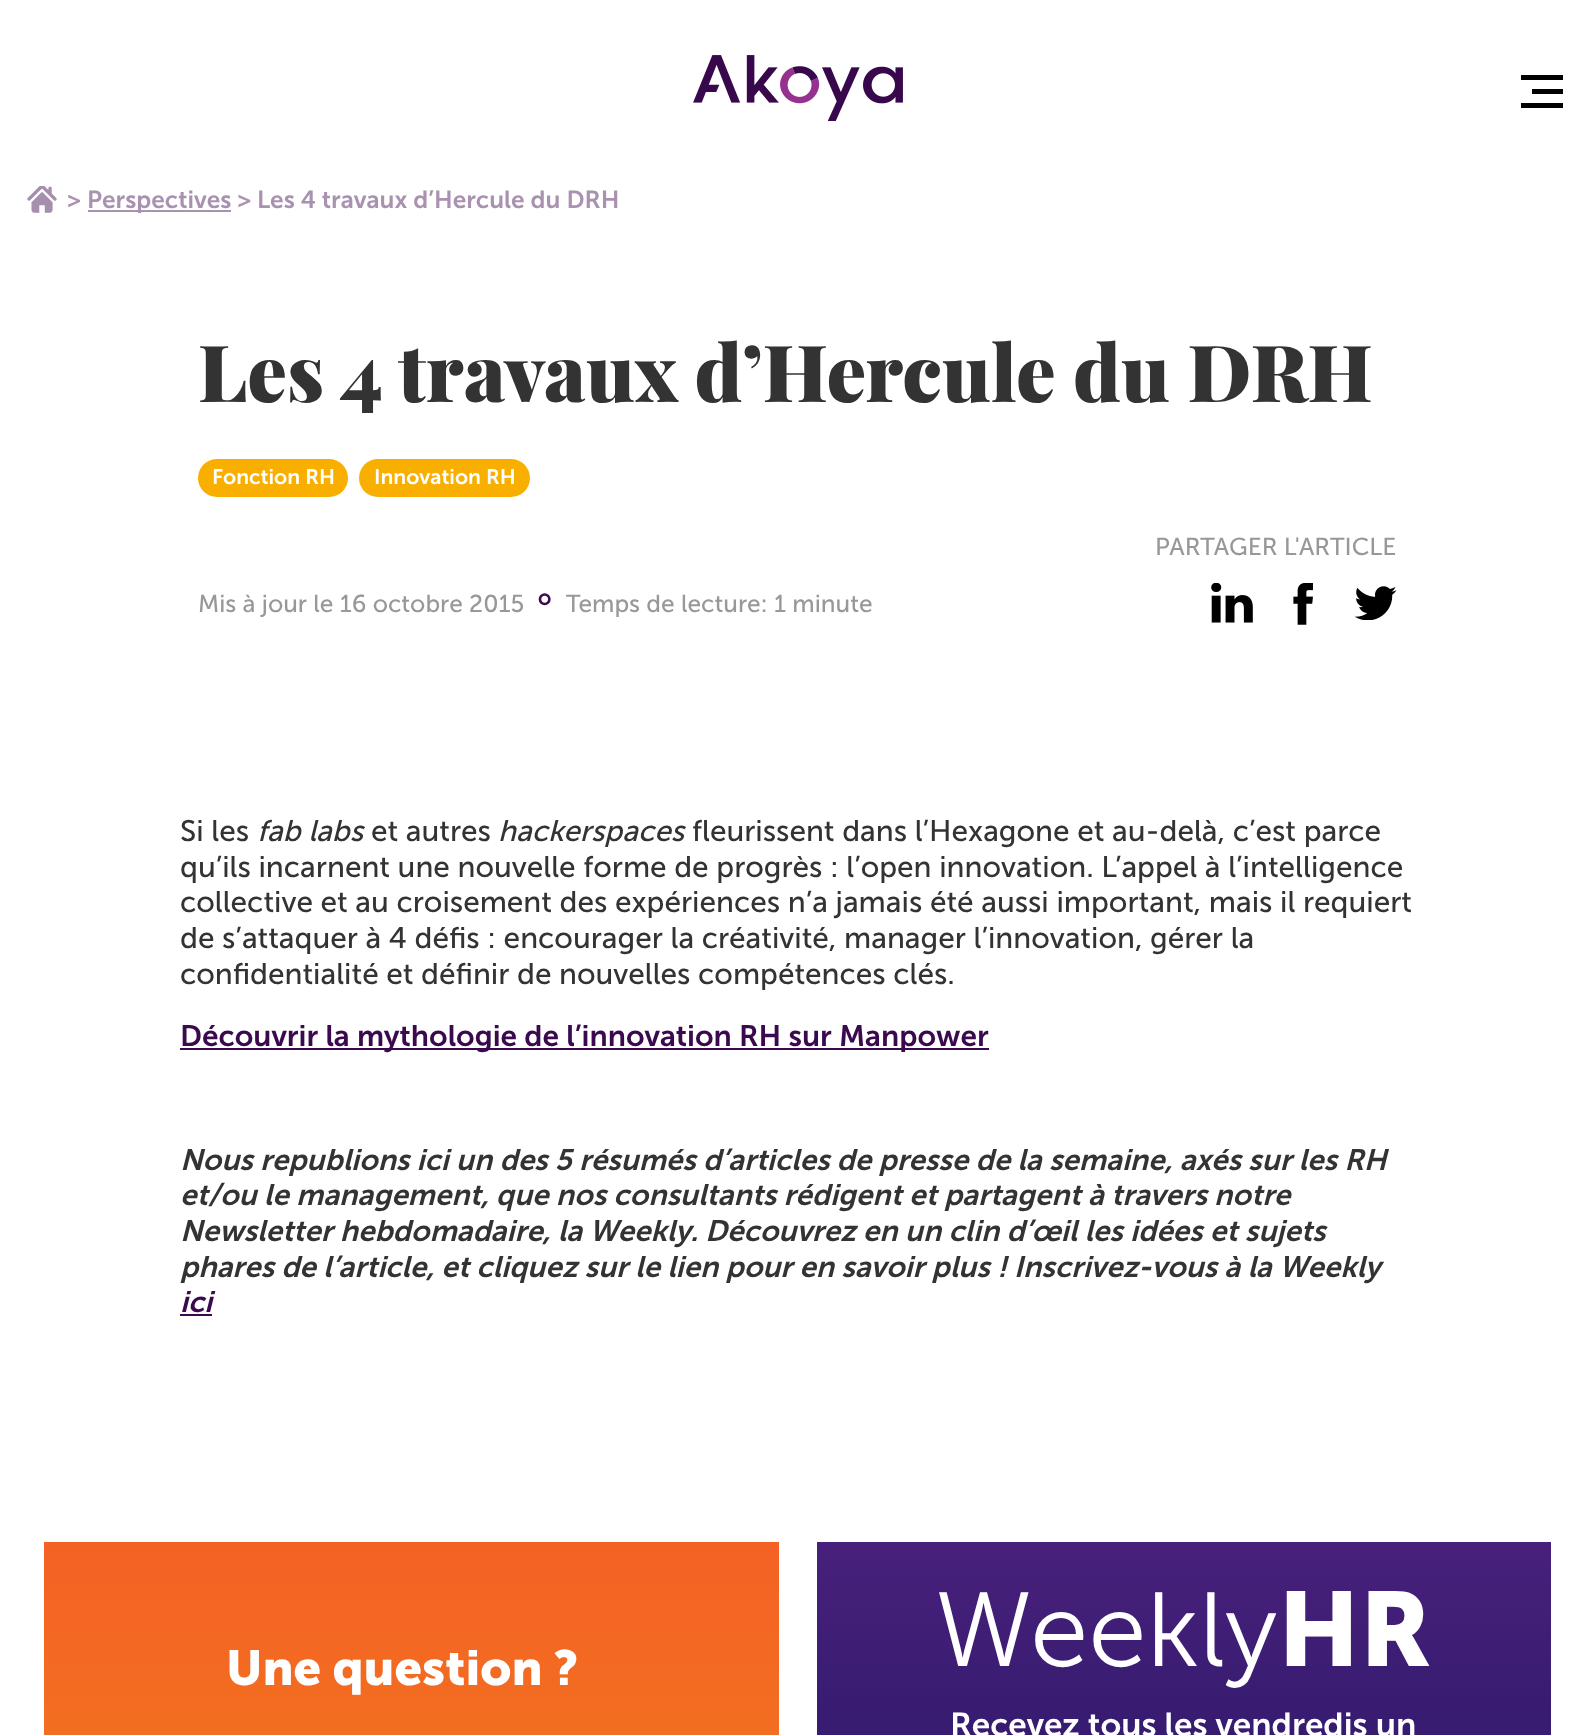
<svg xmlns="http://www.w3.org/2000/svg" width="1594" height="1735">
	<defs>
		<linearGradient id="g1" gradientUnits="userSpaceOnUse" x1="411" y1="1542" x2="411" y2="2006"><stop offset="0" stop-color="#F36224" /><stop offset="1" stop-color="#F37F1D" /></linearGradient>
		<linearGradient id="g2" gradientUnits="userSpaceOnUse" x1="1184" y1="1542" x2="1184" y2="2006"><stop offset="0" stop-color="#48207B" /><stop offset="1" stop-color="#1D1562" /></linearGradient>
	</defs>
	<rect width="100%" height="100%" fill="#FFFFFF" />
	<image x="693" y="55" width="210" height="66" href="assets/img1.png" />
	<rect x="1521" y="75" width="42" height="5" fill="#000000" />
	<rect x="1532" y="89" width="31" height="5" fill="#000000" />
	<rect x="1521" y="103" width="42" height="5" fill="#000000" />
	<image x="27" y="186" width="30" height="27" href="assets/img2.png" />
	<text x="67" y="208" font-family="'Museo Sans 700'" font-size="24.5" font-weight="600" fill="#A892B0">&gt;</text>
	<rect x="88" y="210" width="143" height="2" fill="#A892B0" />
	<text x="87" y="208" font-family="'Museo Sans 700'" font-size="24.5" font-weight="600" fill="#A892B0">Perspectives &gt; Les 4 travaux d’Hercule du DRH</text>
	<text x="198" y="402" font-family="Playfair Display" font-size="78.75" font-weight="900" fill="#333333">Les 4 travaux d’Hercule du DRH</text>
	<rect x="198" y="459" width="150" height="38" rx="19" fill="#F8AF00" />
	<text x="212" y="484" font-family="'Museo Sans 700'" font-size="21" font-weight="600" fill="#FFFFFF">Fonction RH</text>
	<rect x="359" y="459" width="171" height="38" rx="19" fill="#F8AF00" />
	<text x="374" y="484" font-family="'Museo Sans 700'" font-size="21" font-weight="600" fill="#FFFFFF">Innovation RH</text>
	<text x="1155" y="555" font-family="'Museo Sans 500'" font-size="24.5" fill="#989898">PARTAGER L'ARTICLE</text>
	<image x="1211" y="583" width="42" height="40" href="assets/img3.png" />
	<image x="1293" y="583" width="20" height="42" href="assets/img4.png" />
	<image x="1355" y="586" width="42" height="34" href="assets/img5.png" />
	<text x="198" y="612" font-family="'Museo Sans 500'" font-size="24.5" fill="#989898">Mis à jour le 16 octobre 2015</text>
	<text x="530" y="612" font-family="DejaVu Sans" font-size="35" fill="#3B094E">⚬</text>
	<text x="566" y="612" font-family="'Museo Sans 500'" font-size="24.5" fill="#989898">Temps de lecture: 1 minute</text>
	<text x="180" y="841" font-family="'Museo Sans 500'" font-size="29.75" fill="#333333">Si les</text>
	<text x="257" y="841" font-family="'Museo Sans 500'" font-size="29.75" font-style="italic" fill="#333333">fab labs</text>
	<text x="371" y="841" font-family="'Museo Sans 500'" font-size="29.75" fill="#333333">et autres</text>
	<text x="498" y="841" font-family="'Museo Sans 500'" font-size="29.75" font-style="italic" fill="#333333">hackerspaces</text>
	<g font-family="'Museo Sans 500'" font-size="29.75" fill="#333333">
		<text x="692" y="841">fleurissent dans l’Hexagone et au-delà, c’est parce</text>
		<text x="180" y="877">qu’ils incarnent une nouvelle forme de progrès : l’open innovation. L’appel à l’intelligence</text>
		<text x="180" y="912">collective et au croisement des expériences n’a jamais été aussi important, mais il requiert</text>
		<text x="180" y="948">de s’attaquer à 4 défis : encourager la créativité, manager l’innovation, gérer la</text>
		<text x="180" y="984">confidentialité et définir de nouvelles compétences clés.</text>
	</g>
	<rect x="180" y="1048" width="809" height="2" fill="#3B094E" />
	<text x="180" y="1046" font-family="'Museo Sans 700'" font-size="29.75" font-weight="600" fill="#3B094E">Découvrir la mythologie de l’innovation RH sur Manpower</text>
	<g font-family="'Museo Sans 700'" font-size="29.75" font-weight="600" font-style="italic" fill="#333333">
		<text x="180" y="1170">Nous republions ici un des 5 résumés d’articles de presse de la semaine, axés sur les RH</text>
		<text x="180" y="1205">et/ou le management, que nos consultants rédigent et partagent à travers notre</text>
		<text x="180" y="1241">Newsletter hebdomadaire, la Weekly. Découvrez en un clin d’œil les idées et sujets</text>
		<text x="180" y="1277">phares de l’article, et cliquez sur le lien pour en savoir plus ! Inscrivez-vous à la Weekly</text>
	</g>
	<text x="180" y="1312" font-family="'Museo Sans 700'" font-size="29.75" font-weight="600" font-style="italic" fill="#3B094E">ici</text>
	<rect x="180" y="1314" width="32" height="2" fill="#3B094E" />
	<rect x="44" y="1542" width="735" height="193" fill="url(#g1)" />
	<text x="226" y="1685" font-family="'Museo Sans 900'" font-size="49" font-weight="700" fill="#FFFFFF">Une question ?</text>
	<rect x="817" y="1542" width="734" height="193" fill="url(#g2)" />
	<text x="935" y="1666" font-family="'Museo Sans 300'" font-size="105" font-weight="300" fill="#FFFFFF">Weekly</text>
	<text x="1278" y="1666" font-family="'Museo Sans 900'" font-size="105" font-weight="700" fill="#FFFFFF">HR</text>
	<text x="950" y="1736" font-family="'Museo Sans 700'" font-size="33.25" font-weight="600" fill="#FFFFFF">Recevez tous les vendredis un</text>
</svg>
